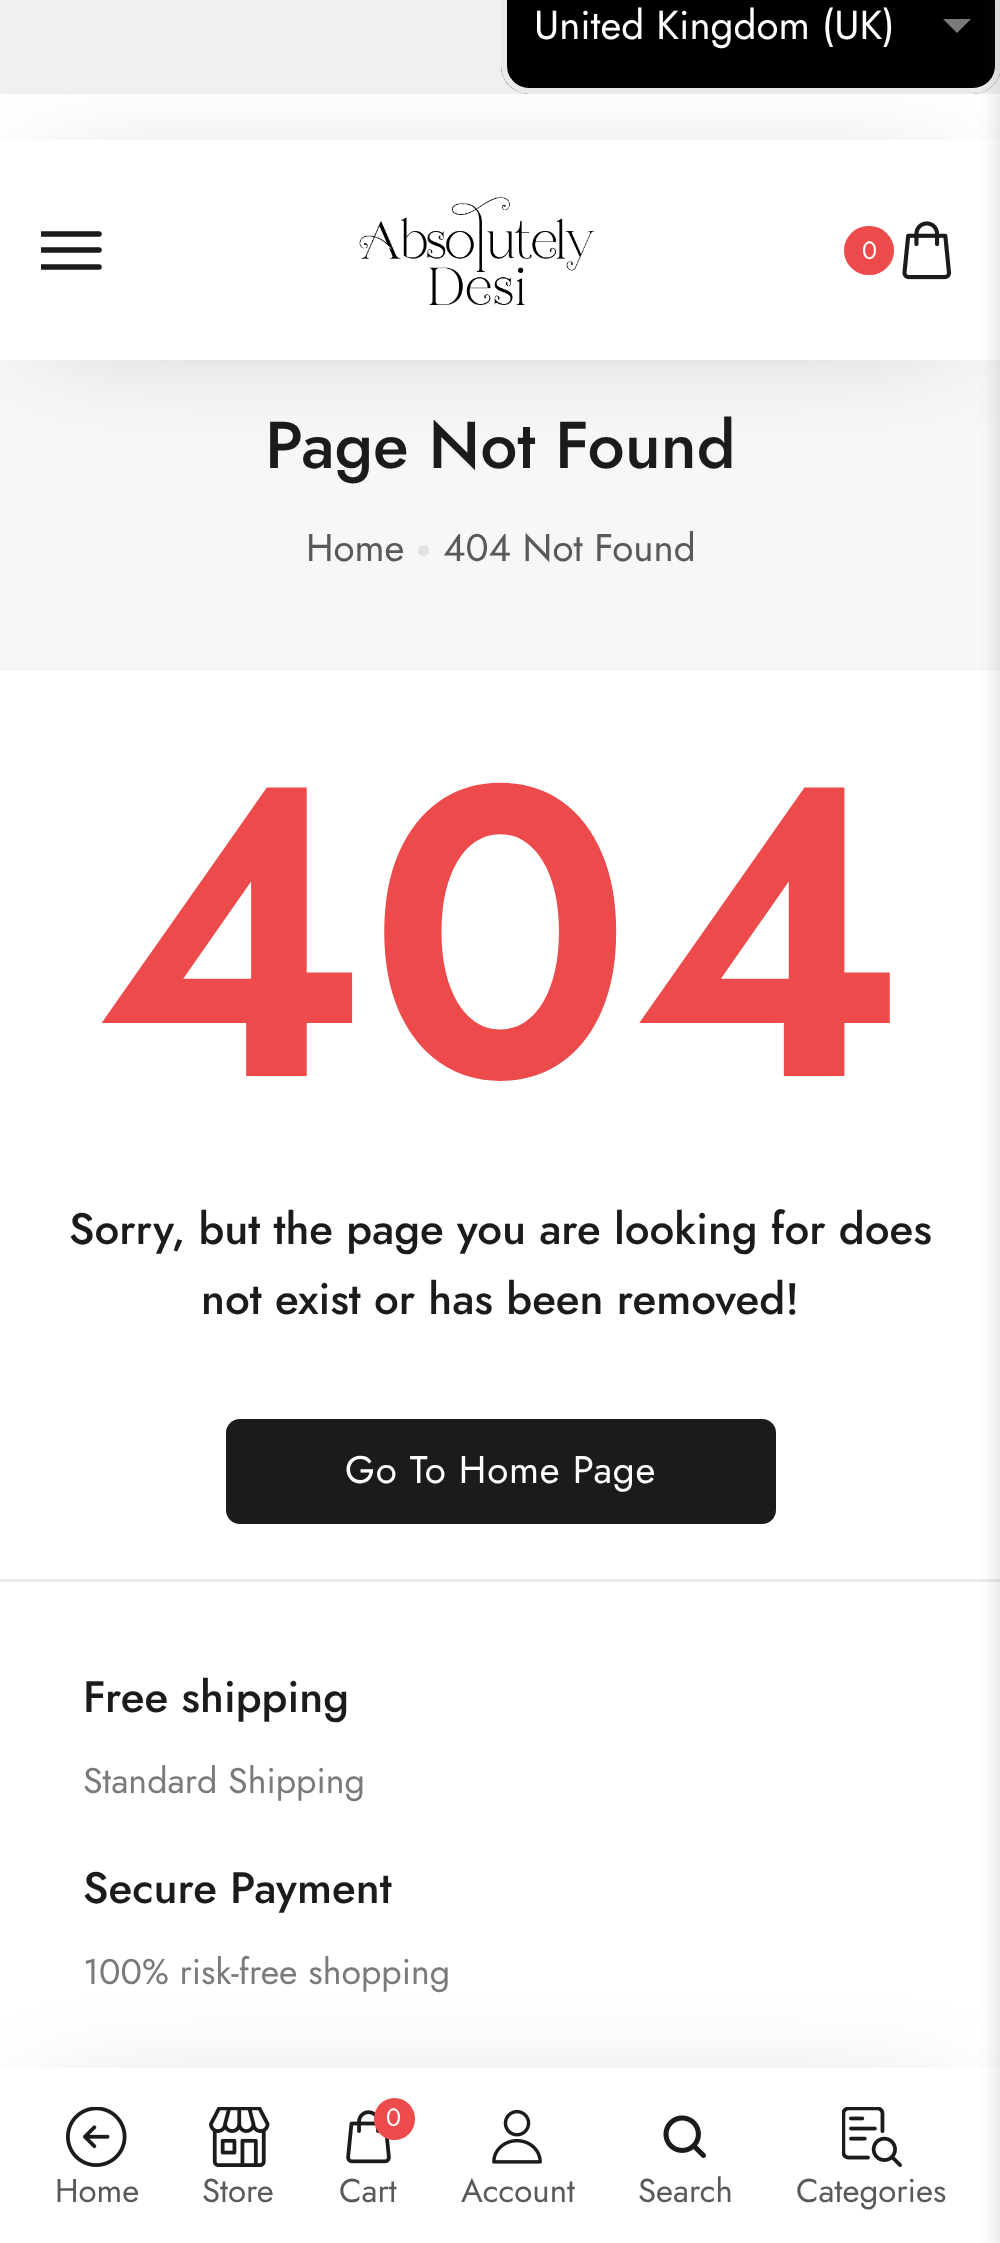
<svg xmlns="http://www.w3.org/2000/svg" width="1000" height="2243">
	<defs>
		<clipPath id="clip1"><rect x="41" y="217" width="66" height="66" /></clipPath>
	</defs>
	<rect width="100%" height="100%" fill="#FFFFFF" />
	<rect x="0" y="0" width="1000" height="94" fill="#F1F1F1" />
	<rect x="501" y="-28" width="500" height="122" rx="28" fill="#000000" />
	<path d="M943 19L957 33L971 19Z" fill="#7A7A7A" />
	<rect x="504" y="-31" width="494" height="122" rx="25" fill="none" stroke="#EAEBED" stroke-width="6" />
	<text x="534" y="39" font-family="Jost" font-size="40.25" fill="#FFFFFF">United Kingdom (UK)</text>
	<rect x="0" y="360" width="1000" height="311" fill="#F7F7F8" />
	<rect x="50" y="201" width="891" height="110" fill="#000000" fill-opacity="0.3" filter="blur(62px)" />
	<rect x="0" y="140" width="1000" height="220" fill="#FFFFFF" />
	<g clip-path="url(#clip1)">
		<path d="M41 250H99M41 234H99M41 267H99" fill="none" stroke="#1B1B1B" stroke-width="5.5" stroke-linecap="round" stroke-linejoin="round" />
	</g>
	<image x="359" y="197" width="236" height="108" href="assets/img1.png" />
	<rect x="844" y="226" width="50" height="49" rx="24.5" fill="#ED4B4B" />
	<text x="862" y="259" font-family="Jost" font-size="25" fill="#FFFFFF">0</text>
	<image x="902" y="221" width="49" height="59" href="assets/img2.png" />
	<text x="265" y="468" font-family="Jost" font-size="66" font-weight="500" fill="#1B1B1B">Page Not Found</text>
	<text x="306" y="561" font-family="Jost" font-size="38.5" fill="#595959">Home</text>
	<circle cx="423.5" cy="550.5" r="5.5" fill="#E1E2E3" />
	<text x="443" y="561" font-family="Jost" font-size="38.5" fill="#595959">404 Not Found</text>
	<text x="95" y="1076" font-family="Jost" font-size="412" font-weight="600" fill="#ED4B4B">404</text>
	<g font-family="Jost" font-size="44" font-weight="500" fill="#1B1B1B">
		<text x="69" y="1244">Sorry, but the page you are looking for does</text>
		<text x="201" y="1314">not exist or has been removed!</text>
	</g>
	<rect x="226" y="1419" width="550" height="105" rx="14" fill="#1B1B1B" />
	<text x="345" y="1483" font-family="Jost" font-size="38.5" letter-spacing="0.8" fill="#FFFFFF">Go To Home Page</text>
	<rect x="0" y="1579" width="1000" height="3" fill="#EAEBED" />
	<text x="83" y="1712" font-family="Jost" font-size="44" font-weight="500" fill="#1B1B1B">Free shipping</text>
	<text x="83" y="1793" font-family="Jost" font-size="35.75" fill="#7A7A7A">Standard Shipping</text>
	<text x="83" y="1903" font-family="Jost" font-size="44" font-weight="500" fill="#1B1B1B">Secure Payment</text>
	<text x="83" y="1984" font-family="Jost" font-size="35.75" fill="#7A7A7A">100% risk-free shopping</text>
	<rect x="50" y="2129" width="891" height="66" fill="#000000" fill-opacity="0.3" filter="blur(62px)" />
	<rect x="0" y="2068" width="1000" height="175" fill="#FFFFFF" />
	<rect x="993" y="-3" width="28" height="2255" fill="#333333" fill-opacity="0.11" filter="blur(7px)" />
	<image x="66" y="2107" width="61" height="60" href="assets/img3.png" />
	<text x="55" y="2202" font-family="Jost" font-size="33" fill="#595959">Home</text>
	<image x="209" y="2107" width="61" height="60" href="assets/img4.png" />
	<text x="202" y="2202" font-family="Jost" font-size="33" fill="#595959">Store</text>
	<image x="346" y="2110" width="45" height="54" href="assets/img5.png" />
	<rect x="374" y="2098" width="41" height="42" rx="20.5" fill="#ED4B4B" />
	<text x="386" y="2126" font-family="Jost" font-size="25" fill="#FFFFFF">0</text>
	<text x="339" y="2202" font-family="Jost" font-size="33" fill="#595959">Cart</text>
	<image x="492" y="2109" width="50" height="55" href="assets/img6.png" />
	<text x="461" y="2202" font-family="Jost" font-size="33" fill="#595959">Account</text>
	<image x="663" y="2115" width="43" height="43" href="assets/img7.png" />
	<text x="638" y="2202" font-family="Jost" font-size="33" fill="#595959">Search</text>
	<image x="842" y="2107" width="60" height="60" href="assets/img8.png" />
	<text x="796" y="2202" font-family="Jost" font-size="33" fill="#595959">Categories</text>
</svg>
